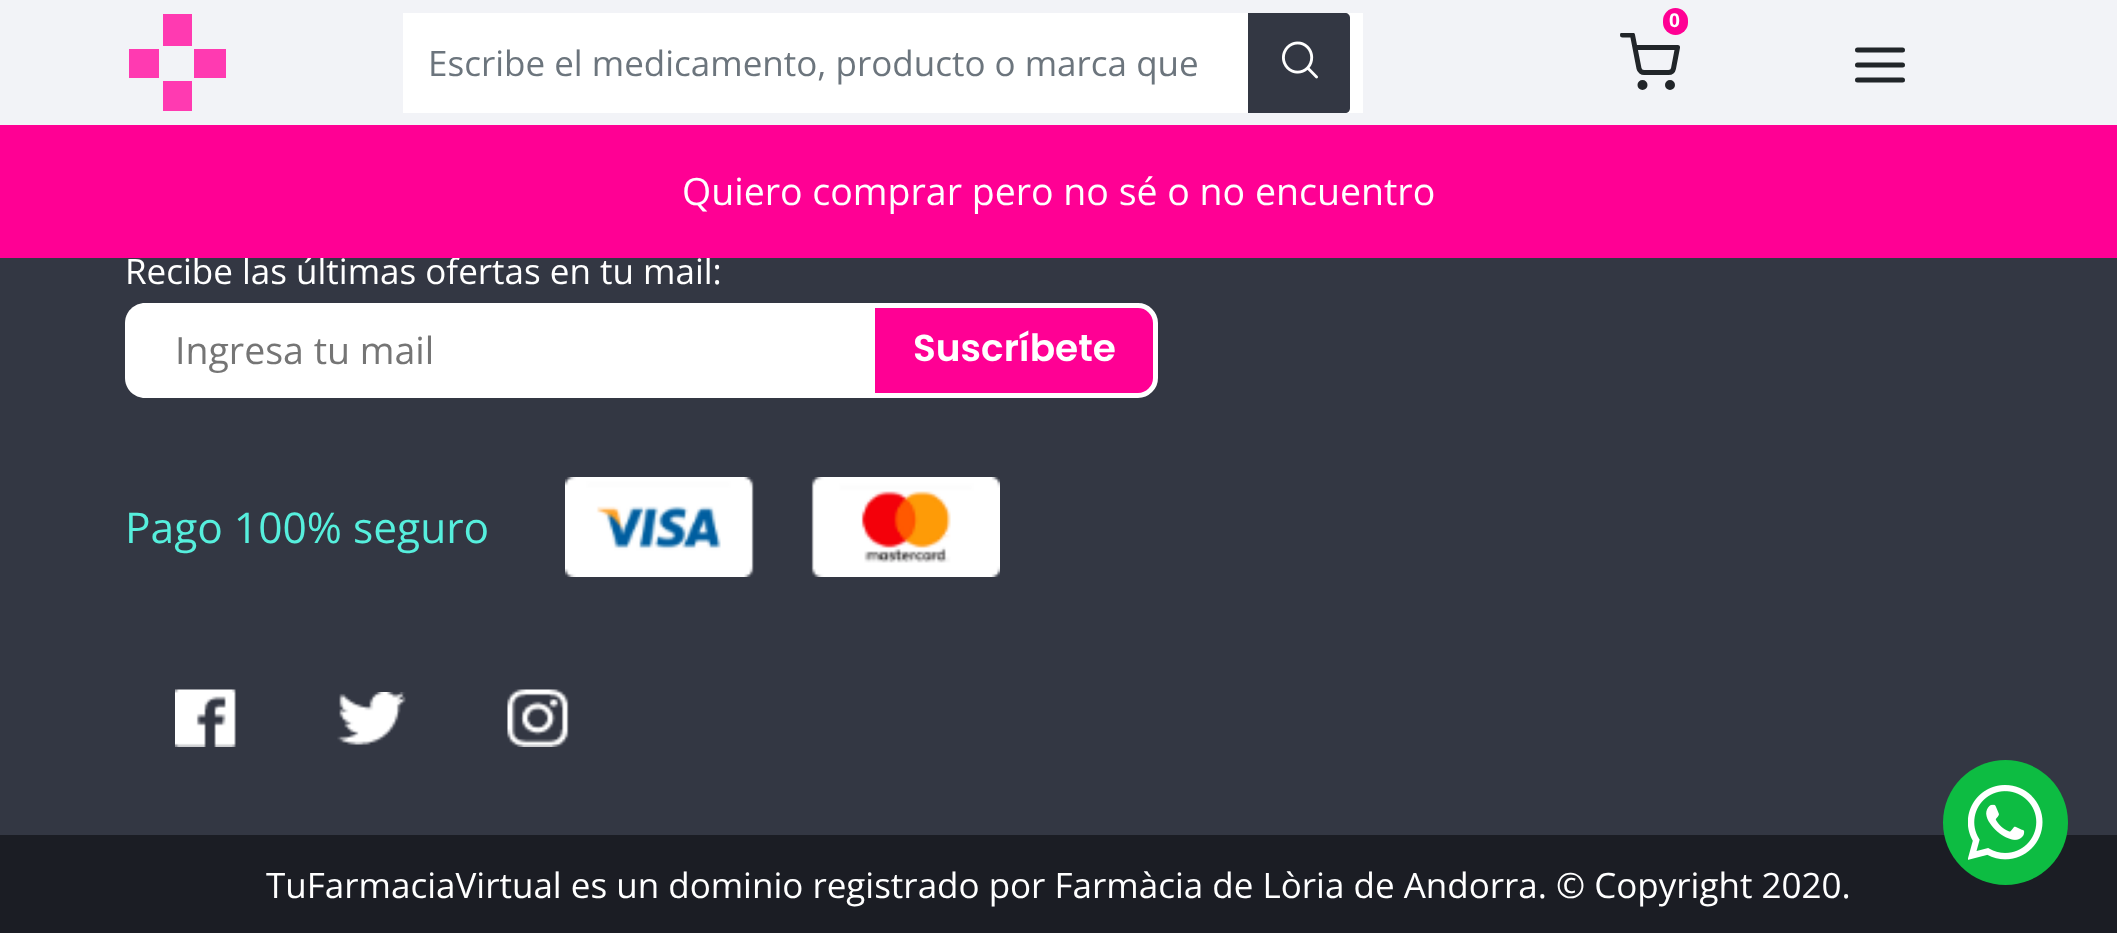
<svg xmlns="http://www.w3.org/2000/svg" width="2117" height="933">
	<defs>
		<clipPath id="clip1"><rect x="1620" y="33" width="60" height="60" /></clipPath>
	</defs>
	<rect width="100%" height="100%" fill="#1B1D24" />
	<rect x="0" y="0" width="2117" height="125" fill="#F2F3F7" />
	<g clip-path="url(#clip1)">
		<path d="M1622.5 35H1632.5L1639 68.5C1639.5 71 1642 72.5 1644 72.5H1668.5C1671 72.5 1673 71 1673.5 68.5L1677.5 47.5H1635" fill="none" stroke="#212529" stroke-width="5" stroke-linecap="round" stroke-linejoin="round" />
	</g>
	<rect x="1663" y="8" width="25" height="27" rx="12.5" fill="#FF0094" />
	<text x="1669" y="27" font-family="Open Sans" font-size="19" font-weight="700" fill="#FFFFFF">0</text>
	<circle cx="1642.5" cy="85" r="2.5" fill="none" stroke="#212529" stroke-width="5" />
	<circle cx="1670" cy="85" r="2.5" fill="none" stroke="#212529" stroke-width="5" />
	<path d="M1857.5 65H1902.5M1857.5 50H1902.5M1857.5 80H1902.5" fill="none" stroke="#212529" stroke-width="5" stroke-linecap="round" stroke-linejoin="round" />
	<rect x="194" y="49" width="32" height="29" fill="#FF3AB1" />
	<rect x="129" y="49" width="30" height="29" fill="#FF3AB1" />
	<rect x="163" y="14" width="29" height="32" fill="#FF3AB1" />
	<rect x="163" y="81" width="29" height="30" fill="#FF3AB1" />
	<rect x="403" y="13" width="960" height="100" fill="#FFFFFF" />
	<text x="428" y="76" font-family="Open Sans" font-size="35" fill="#6C757D">Escribe el medicamento, producto o marca que</text>
	<path d="M1248 13H1345C1348 13 1350 15 1350 18V108C1350 111 1348 113 1345 113H1248Z" fill="#333743" />
	<image x="1282" y="41" width="36" height="38" href="assets/img1.png" />
	<rect x="0" y="258" width="2117" height="577" fill="#333743" />
	<text x="125" y="284" font-family="Open Sans" font-size="35" fill="#FFFFFF">Recibe las últimas ofertas en tu mail:</text>
	<rect x="0" y="125" width="2117" height="133" fill="#FF0094" />
	<text x="682" y="205" font-family="Open Sans" font-size="37.5" fill="#FFFFFF">Quiero comprar pero no sé o no encuentro</text>
	<circle cx="2005.5" cy="822.5" r="62.5" fill="#0DBC42" />
	<image x="1968" y="785" width="75" height="75" href="assets/img2.png" />
	<path d="M145 303H875V398H145C134 398 125 389 125 378V323C125 312 134 303 145 303Z" fill="#FFFFFF" />
	<text x="175" y="364" font-family="Open Sans" font-size="37.5" fill="#757575">Ingresa tu mail</text>
	<path d="M872.5 305.5H1138C1147.5 305.5 1155.5 313.5 1155.5 323V378C1155.5 387.5 1147.5 395.5 1138 395.5H872.5Z" fill="#FF0094" stroke="#FFFFFF" stroke-width="5" />
	<text x="913" y="361" font-family="Poppins" font-size="37.5" font-weight="600" fill="#FFFFFF">Suscríbete</text>
	<text x="125" y="543" font-family="Open Sans" font-size="42.5" fill="#56EFDD">Pago 100% seguro</text>
	<image x="565" y="477" width="435" height="100" href="assets/img3.png" />
	<image x="175" y="689" width="61" height="58" href="assets/img4.png" />
	<image x="337" y="692" width="69" height="53" href="assets/img5.png" />
	<image x="507" y="689" width="62" height="58" href="assets/img6.png" />
	<text x="266" y="898" font-family="Open Sans" font-size="35" fill="#FFFFFF">TuFarmaciaVirtual es un dominio registrado por Farmàcia de Lòria de Andorra. © Copyright 2020.</text>
</svg>
